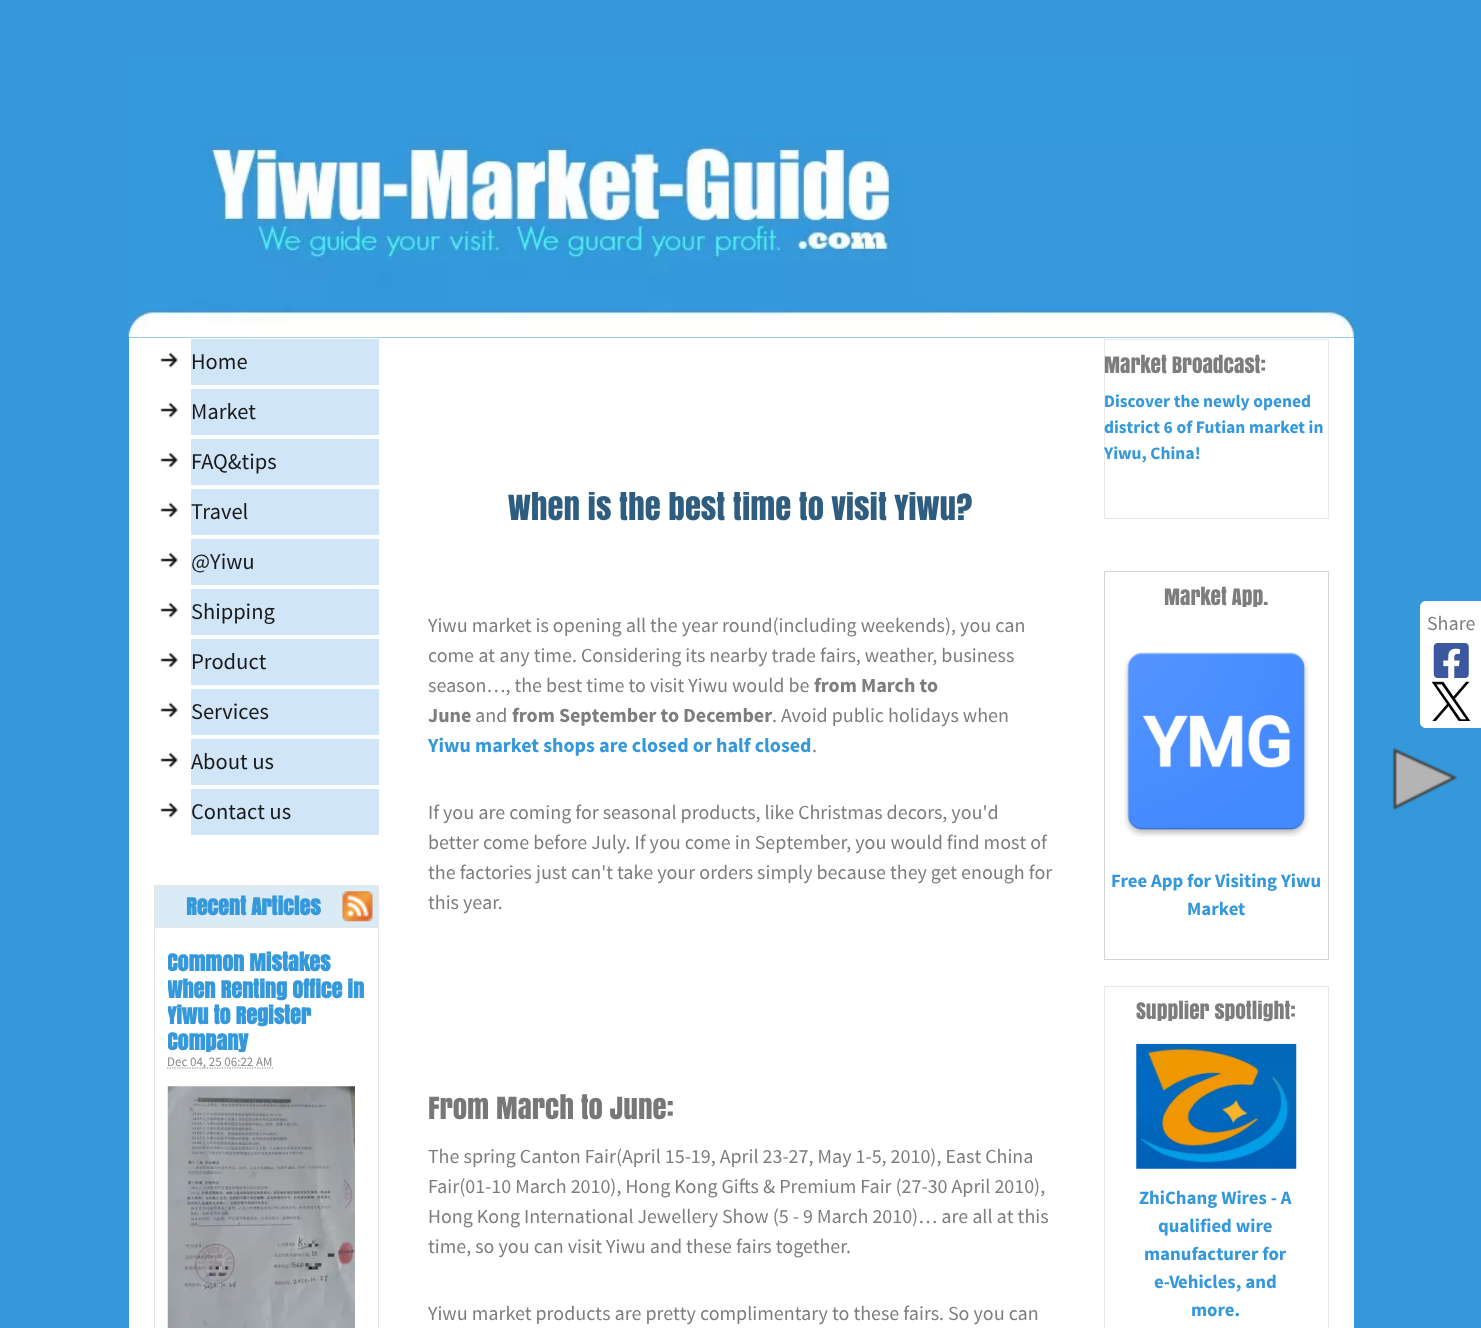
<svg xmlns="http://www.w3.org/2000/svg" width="1481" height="1328">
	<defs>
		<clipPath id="clip1"><rect x="168" y="928" width="197" height="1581" /></clipPath>
	</defs>
	<rect width="100%" height="100%" fill="#3498DB" />
	<rect x="129" y="338" width="1225" height="990" fill="#FFFFFF" />
	<image x="128" y="56" width="1226" height="282" href="assets/img1.png" />
	<image x="160" y="352" width="18" height="16" href="assets/img2.png" />
	<rect x="191" y="339" width="188" height="46" fill="#D0E5F7" />
	<text x="191" y="369" font-family="Source Sans Pro" font-size="22.5" fill="#191919">Home</text>
	<image x="160" y="402" width="18" height="16" href="assets/img2.png" />
	<rect x="191" y="389" width="188" height="46" fill="#D0E5F7" />
	<text x="191" y="419" font-family="Source Sans Pro" font-size="22.5" fill="#191919">Market</text>
	<image x="160" y="452" width="18" height="16" href="assets/img2.png" />
	<rect x="191" y="439" width="188" height="46" fill="#D0E5F7" />
	<text x="191" y="469" font-family="Source Sans Pro" font-size="22.5" fill="#191919">FAQ&amp;tips</text>
	<image x="160" y="502" width="18" height="16" href="assets/img2.png" />
	<rect x="191" y="489" width="188" height="46" fill="#D0E5F7" />
	<text x="191" y="519" font-family="Source Sans Pro" font-size="22.5" fill="#191919">Travel</text>
	<image x="160" y="552" width="18" height="16" href="assets/img2.png" />
	<rect x="191" y="539" width="188" height="46" fill="#D0E5F7" />
	<text x="191" y="569" font-family="Source Sans Pro" font-size="22.5" fill="#191919">@Yiwu</text>
	<image x="160" y="602" width="18" height="16" href="assets/img2.png" />
	<rect x="191" y="589" width="188" height="46" fill="#D0E5F7" />
	<text x="191" y="619" font-family="Source Sans Pro" font-size="22.5" fill="#191919">Shipping</text>
	<image x="160" y="652" width="18" height="16" href="assets/img2.png" />
	<rect x="191" y="639" width="188" height="46" fill="#D0E5F7" />
	<text x="191" y="669" font-family="Source Sans Pro" font-size="22.5" fill="#191919">Product</text>
	<image x="160" y="702" width="18" height="16" href="assets/img2.png" />
	<rect x="191" y="689" width="188" height="46" fill="#D0E5F7" />
	<text x="191" y="719" font-family="Source Sans Pro" font-size="22.5" fill="#191919">Services</text>
	<image x="160" y="752" width="18" height="16" href="assets/img2.png" />
	<rect x="191" y="739" width="188" height="46" fill="#D0E5F7" />
	<text x="191" y="769" font-family="Source Sans Pro" font-size="22.5" fill="#191919">About us</text>
	<image x="160" y="802" width="18" height="16" href="assets/img2.png" />
	<rect x="191" y="789" width="188" height="46" fill="#D0E5F7" />
	<text x="191" y="819" font-family="Source Sans Pro" font-size="22.5" fill="#191919">Contact us</text>
	<rect x="154.5" y="885.5" width="224" height="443" fill="none" stroke="#E5E5E5" />
	<rect x="155" y="886" width="223" height="42" fill="#DAEBF5" />
	<rect x="155" y="926" width="223" height="1" fill="#E5E5E5" />
	<text x="186" y="915" font-family="Anton" font-size="21.9" font-weight="700" fill="#3498DB">Recent Articles</text>
	<image x="342" y="891" width="31" height="31" href="assets/img3.png" />
	<g clip-path="url(#clip1)">
		<g font-family="Anton" font-size="21.9" font-weight="700" fill="#3498DB">
			<text x="167" y="971">Common Mistakes</text>
			<text x="167" y="998">When Renting Office in</text>
			<text x="167" y="1024">Yiwu to Register</text>
			<text x="167" y="1050">Company</text>
		</g>
	</g>
	<path d="M167 1068H273" fill="none" stroke="#888888" stroke-width="1.2" stroke-dasharray="1.25 1.25" />
	<text x="167" y="1066" font-family="Source Sans Pro" font-size="13" fill="#888888">Dec 04, 25 06:22 AM</text>
	<image x="167" y="1086" width="188" height="242" href="assets/img4.png" />
	<rect x="1104.5" y="339.5" width="224" height="179" fill="none" stroke="#E8E8E8" />
	<text x="1104" y="373" font-family="Anton" font-size="21.25" fill="#7D7D7D">Market Broadcast:</text>
	<g font-family="Source Sans Pro" font-size="17.5" font-weight="700" fill="#3498DB">
		<text x="1104" y="407">Discover the newly opened</text>
		<text x="1104" y="433">district 6 of Futian market in</text>
		<text x="1104" y="459">Yiwu, China!</text>
	</g>
	<rect x="1104.5" y="571.5" width="224" height="388" fill="none" stroke="#D4D4D4" />
	<text x="1164" y="605" font-family="Anton" font-size="21.25" fill="#7D7D7D">Market App.</text>
	<image x="1124" y="652" width="185" height="185" href="assets/img5.png" />
	<g font-family="Source Sans Pro" font-size="18.75" font-weight="700" fill="#3498DB">
		<text x="1111" y="887">Free App for Visiting Yiwu</text>
		<text x="1187" y="915">Market</text>
	</g>
	<rect x="1104.5" y="986.5" width="224" height="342" fill="none" stroke="#E8E8E8" />
	<text x="1136" y="1019" font-family="Anton" font-size="21.25" fill="#7D7D7D">Supplier spotlight:</text>
	<image x="1136" y="1043" width="161" height="126" href="assets/img6.png" />
	<g font-family="Source Sans Pro" font-size="18.75" font-weight="700" fill="#3498DB">
		<text x="1139" y="1204">ZhiChang Wires - A</text>
		<text x="1158" y="1232">qualified wire</text>
		<text x="1144" y="1260">manufacturer for</text>
		<text x="1154" y="1288">e-Vehicles, and</text>
		<text x="1191" y="1316">more.</text>
	</g>
	<text x="508" y="520" font-family="Anton" font-size="32.5" fill="#2F5D7F">When is the best time to visit Yiwu?</text>
	<g font-family="Source Sans Pro" font-size="20" fill="#7D7D7D">
		<text x="428" y="632">Yiwu market is opening all the year round(including weekends), you can</text>
		<text x="428" y="662">come at any time. Considering its nearby trade fairs, weather, business</text>
		<text x="428" y="692">season…, the best time to visit Yiwu would be</text>
	</g>
	<g font-family="Source Sans Pro" font-size="20" font-weight="700" fill="#7D7D7D">
		<text x="814" y="692">from March to</text>
		<text x="428" y="722">June</text>
	</g>
	<text x="475" y="722" font-family="Source Sans Pro" font-size="20" fill="#7D7D7D">and</text>
	<text x="512" y="722" font-family="Source Sans Pro" font-size="20" font-weight="700" fill="#7D7D7D">from September to December</text>
	<text x="772" y="722" font-family="Source Sans Pro" font-size="20" fill="#7D7D7D">. Avoid public holidays when</text>
	<text x="428" y="752" font-family="Source Sans Pro" font-size="20" font-weight="700" fill="#3498DB">Yiwu market shops are closed or half closed</text>
	<text x="812" y="752" font-family="Source Sans Pro" font-size="20" fill="#7D7D7D">.</text>
	<path d="M1426 601H1481V728H1426C1422.5 728 1420 725.5 1420 722V607C1420 603.5 1422.5 601 1426 601Z" fill="#FFFFFF" />
	<text x="1427" y="630" font-family="Source Sans Pro" font-size="20" fill="#7D7D7D">Share</text>
	<image x="1433" y="643" width="36" height="35" href="assets/img7.png" />
	<image x="1431" y="681" width="40" height="40" href="assets/img8.png" />
	<image x="1392" y="747" width="66" height="64" href="assets/img9.png" />
	<g font-family="Source Sans Pro" font-size="20" fill="#7D7D7D">
		<text x="428" y="819">If you are coming for seasonal products, like Christmas decors, you'd</text>
		<text x="428" y="849">better come before July. If you come in September, you would find most of</text>
		<text x="428" y="879">the factories just can't take your orders simply because they get enough for</text>
		<text x="428" y="909">this year.</text>
	</g>
	<text x="428" y="1119" font-family="Anton" font-size="28.75" fill="#777777">From March to June:</text>
	<g font-family="Source Sans Pro" font-size="20" fill="#7D7D7D">
		<text x="428" y="1163">The spring Canton Fair(April 15-19, April 23-27, May 1-5, 2010), East China</text>
		<text x="428" y="1193">Fair(01-10 March 2010), Hong Kong Gifts &amp; Premium Fair (27-30 April 2010),</text>
		<text x="428" y="1223">Hong Kong International Jewellery Show (5 - 9 March 2010)… are all at this</text>
		<text x="428" y="1253">time, so you can visit Yiwu and these fairs together.</text>
		<text x="428" y="1320">Yiwu market products are pretty complimentary to these fairs. So you can</text>
	</g>
</svg>
